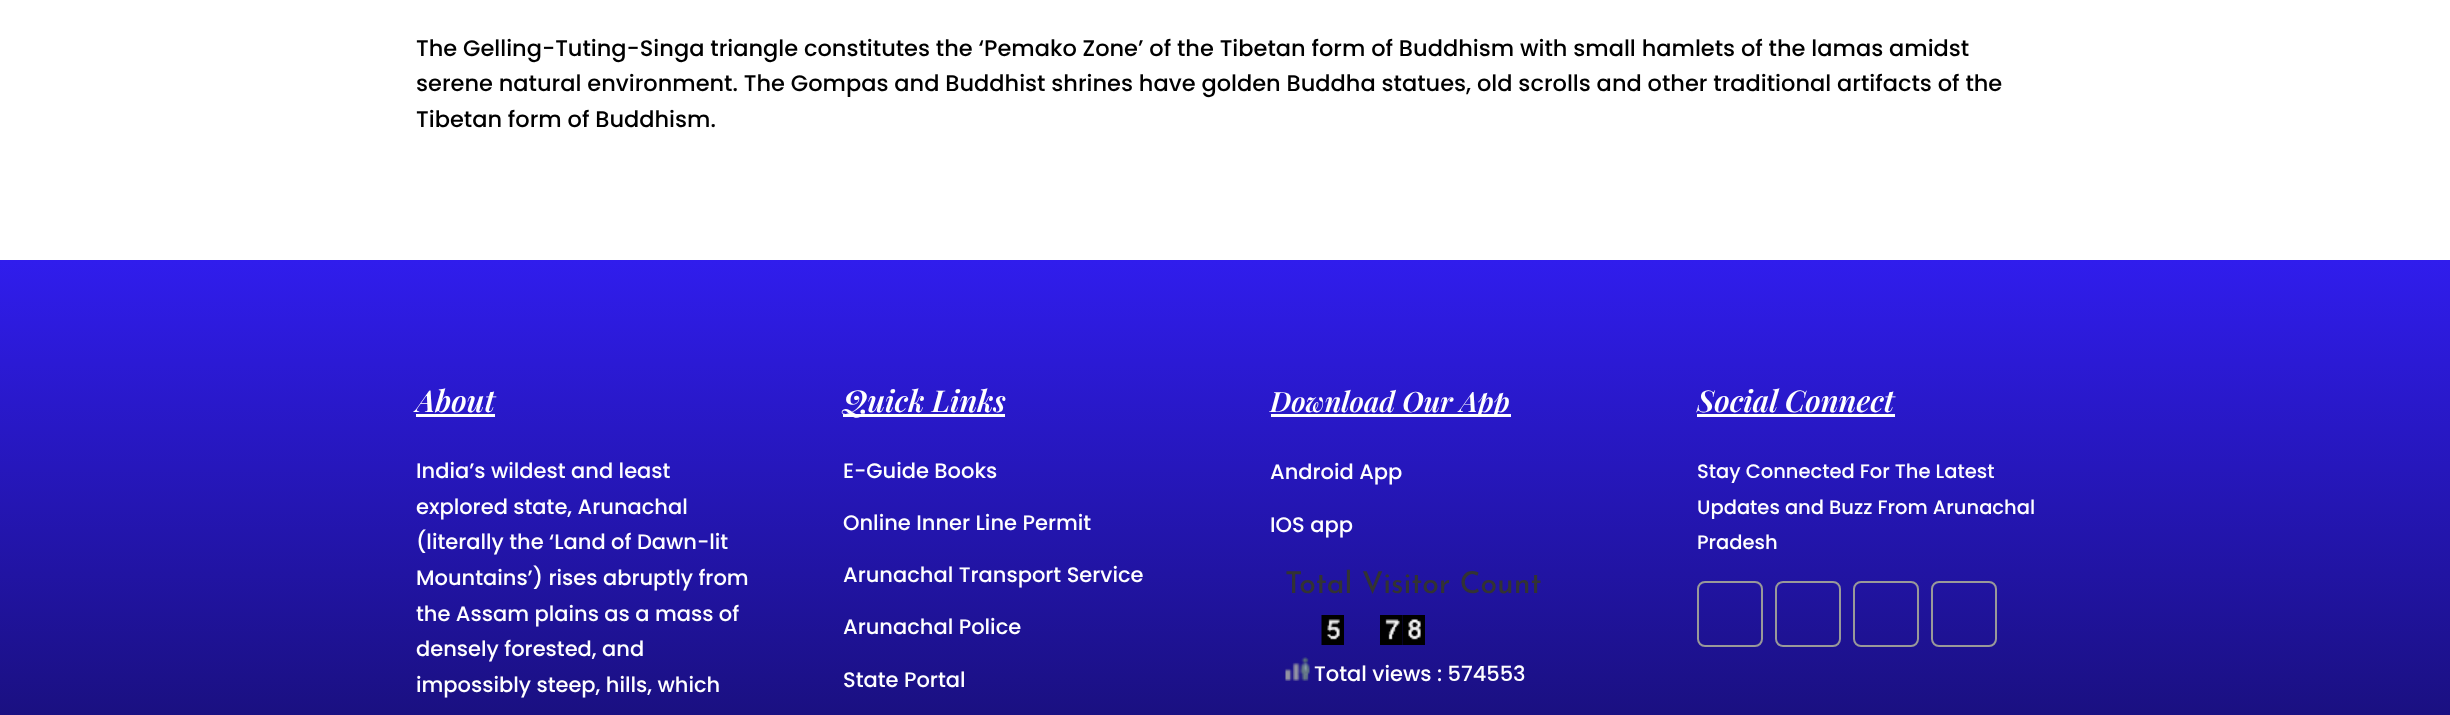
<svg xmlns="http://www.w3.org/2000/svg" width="2450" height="715">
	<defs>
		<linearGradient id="g1" gradientUnits="userSpaceOnUse" x1="1226" y1="259" x2="1226" y2="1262"><stop offset="0" stop-color="#301DED" /><stop offset="1" stop-color="#000000" /></linearGradient>
	</defs>
	<rect width="100%" height="100%" fill="#FFFFFF" />
	<g font-family="Poppins" font-size="22.5" font-weight="500" fill="#000000">
		<text x="416" y="56">The Gelling-Tuting-Singa triangle constitutes the ‘Pemako Zone’ of the Tibetan form of Buddhism with small hamlets of the lamas amidst</text>
		<text x="416" y="91">serene natural environment. The Gompas and Buddhist shrines have golden Buddha statues, old scrolls and other traditional artifacts of the</text>
		<text x="416" y="127">Tibetan form of Buddhism.</text>
	</g>
	<rect x="0" y="260" width="2450" height="455" fill="url(#g1)" />
	<text x="416" y="412" font-family="Playfair Display" font-size="30" font-weight="600" font-style="italic" fill="#FFFFFF">About</text>
	<rect x="416" y="414" width="79" height="3" fill="#FFFFFF" />
	<g font-family="Poppins" font-size="21" font-weight="500" fill="#FFFFFF">
		<text x="416" y="478">India’s wildest and least</text>
		<text x="416" y="514">explored state, Arunachal</text>
		<text x="416" y="549">(literally the ‘Land of Dawn-lit</text>
		<text x="416" y="585">Mountains’) rises abruptly from</text>
		<text x="416" y="621">the Assam plains as a mass of</text>
		<text x="416" y="656">densely forested, and</text>
		<text x="416" y="692">impossibly steep, hills, which</text>
	</g>
	<rect x="843" y="414" width="162" height="3" fill="#FFFFFF" />
	<text x="843" y="412" font-family="Playfair Display" font-size="30" font-weight="600" font-style="italic" fill="#FFFFFF">Quick Links</text>
	<g font-family="Poppins" font-size="21" font-weight="500" fill="#FFFFFF">
		<text x="843" y="478">E-Guide Books</text>
		<text x="843" y="530">Online Inner Line Permit</text>
		<text x="843" y="582">Arunachal Transport Service</text>
		<text x="843" y="634">Arunachal Police</text>
		<text x="843" y="687">State Portal</text>
	</g>
	<rect x="1271" y="414" width="240" height="3" fill="#FFFFFF" />
	<text x="1270" y="412" font-family="Playfair Display" font-size="28" font-weight="600" font-style="italic" fill="#FFFFFF">Download Our App</text>
	<g font-family="Poppins" font-size="21" font-weight="500" fill="#FFFFFF">
		<text x="1270" y="479">Android App</text>
		<text x="1270" y="532">IOS app</text>
	</g>
	<text x="1285" y="593" font-family="Josefin Sans" font-size="30" font-weight="500" fill="#333333">Total Visitor Count</text>
	<image x="1321" y="615" width="23" height="30" href="assets/img1.png" />
	<image x="1380" y="615" width="23" height="30" href="assets/img2.png" />
	<image x="1402" y="615" width="23" height="30" href="assets/img3.png" />
	<image x="1285" y="657" width="25" height="24" href="assets/img4.png" />
	<text x="1314" y="681" font-family="Poppins" font-size="21" font-weight="500" fill="#FFFFFF">Total views : 574553</text>
	<text x="1697" y="412" font-family="Playfair Display" font-size="30" font-weight="600" font-style="italic" fill="#FFFFFF">Social Connect</text>
	<rect x="1697" y="414" width="198" height="3" fill="#FFFFFF" />
	<g font-family="Poppins" font-size="19.5" font-weight="500" fill="#FFFFFF">
		<text x="1697" y="478">Stay Connected For The Latest</text>
		<text x="1697" y="514">Updates and Buzz From Arunachal</text>
		<text x="1697" y="549">Pradesh</text>
	</g>
	<rect x="1698" y="582" width="64" height="64" rx="7" fill="none" stroke="#999999" stroke-width="2" />
	<rect x="1776" y="582" width="64" height="64" rx="7" fill="none" stroke="#999999" stroke-width="2" />
	<rect x="1854" y="582" width="64" height="64" rx="7" fill="none" stroke="#999999" stroke-width="2" />
	<rect x="1932" y="582" width="64" height="64" rx="7" fill="none" stroke="#999999" stroke-width="2" />
</svg>
